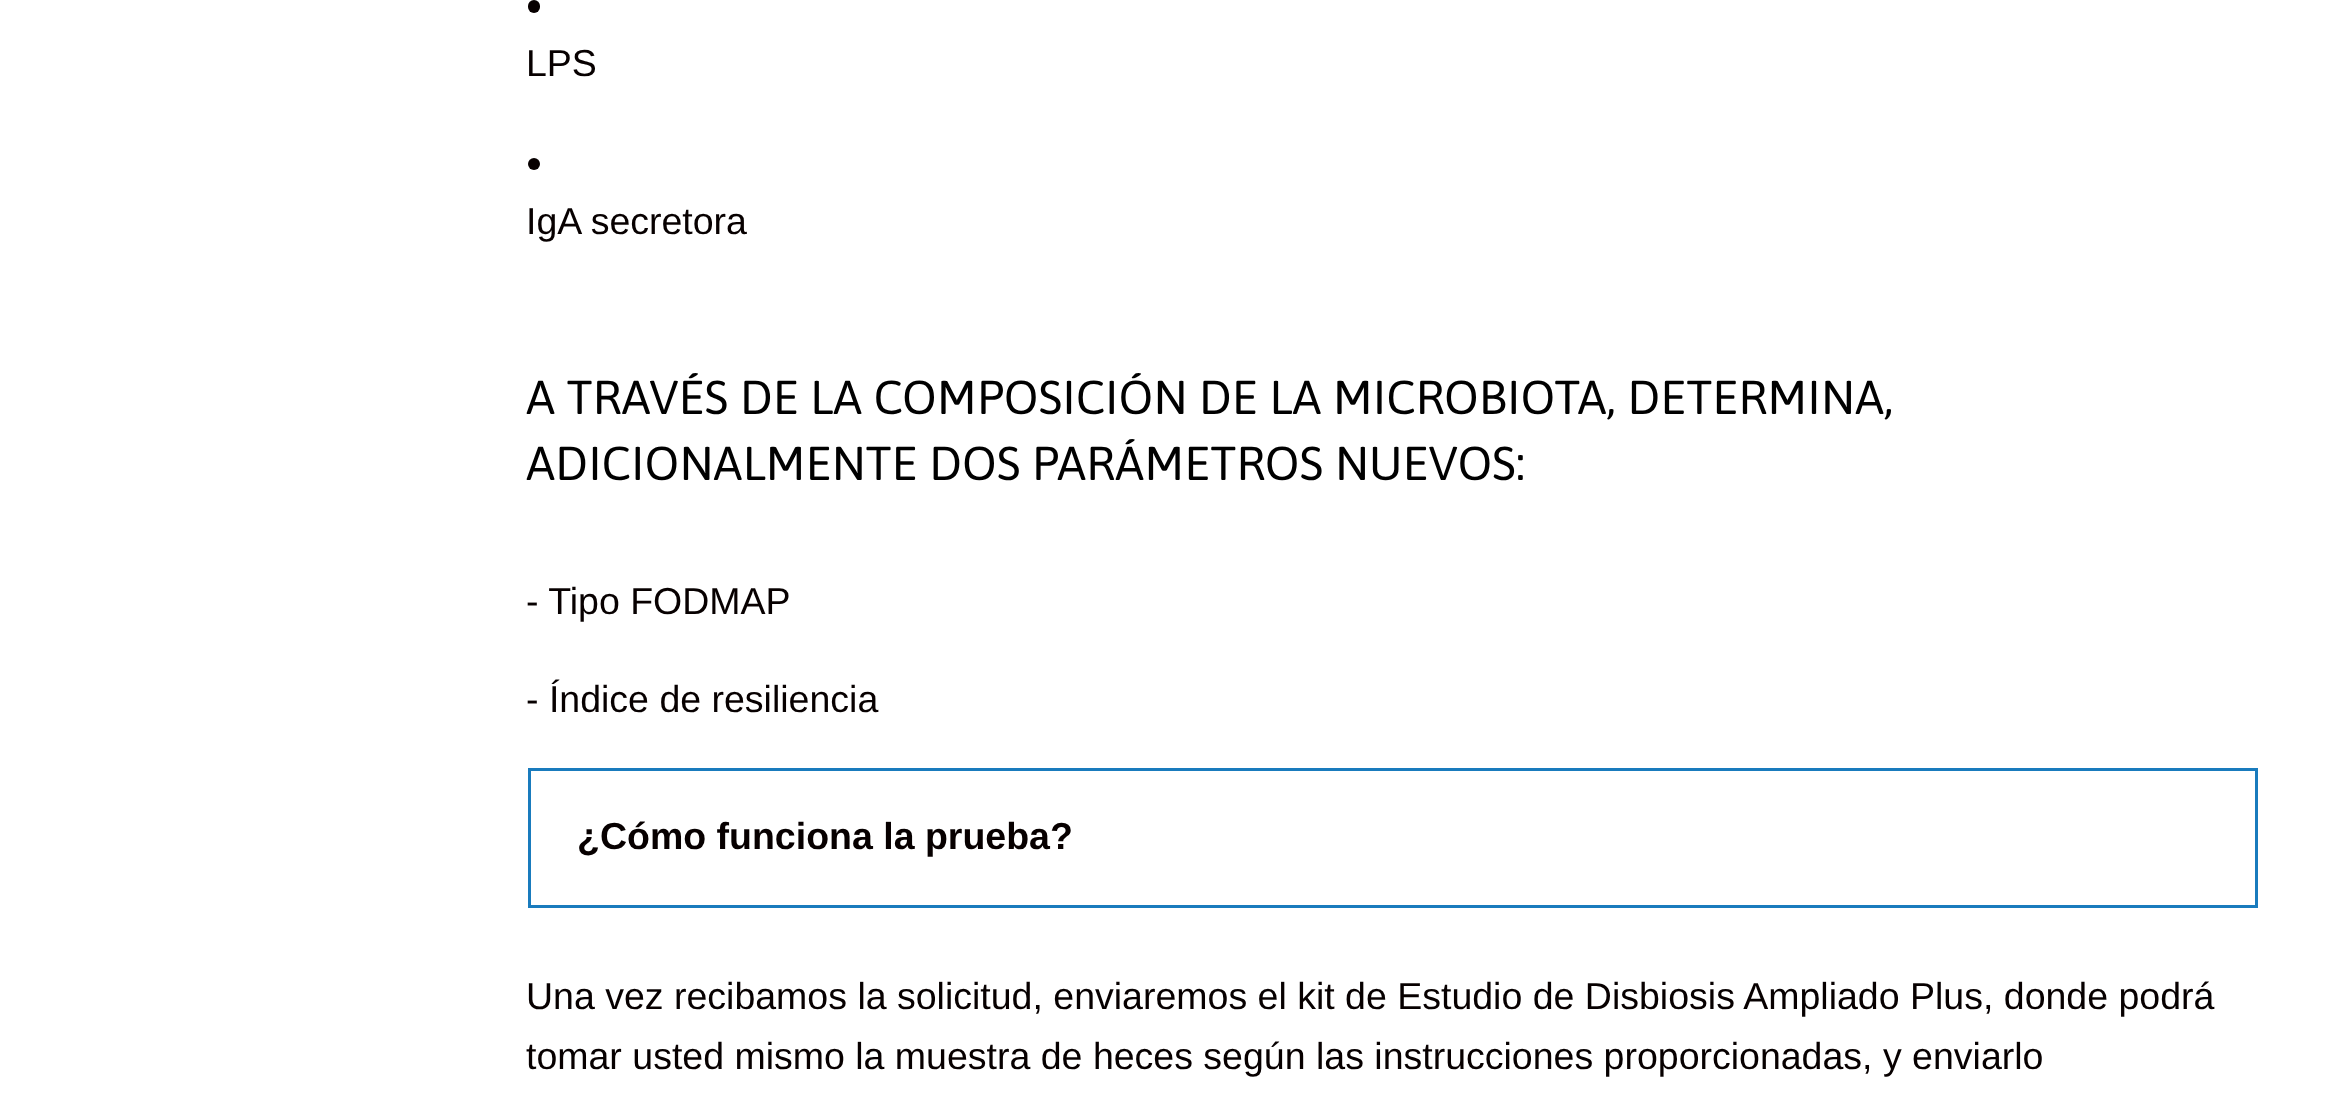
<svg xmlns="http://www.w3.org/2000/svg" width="2332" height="1093">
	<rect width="100%" height="100%" fill="#FFFFFF" />
	<rect x="528" y="0" width="12" height="13" rx="6" fill="#070000" />
	<text x="526" y="76" font-family="Arimo" font-size="37.5" fill="#070000">LPS</text>
	<circle cx="534" cy="164" r="6" fill="#070000" />
	<text x="526" y="234" font-family="Arimo" font-size="37.5" fill="#070000">IgA secretora</text>
	<g font-family="Asap" font-size="47.5" fill="#000000">
		<text x="526" y="414">A TRAVÉS DE LA COMPOSICIÓN DE LA MICROBIOTA, DETERMINA,</text>
		<text x="526" y="480">ADICIONALMENTE DOS PARÁMETROS NUEVOS:</text>
	</g>
	<g font-family="Arimo" font-size="37.5" fill="#070000">
		<text x="526" y="614">- Tipo FODMAP</text>
		<text x="526" y="712">- Índice de resiliencia</text>
	</g>
	<rect x="528" y="768" width="1730" height="3" fill="#197BBD" />
	<rect x="2255" y="768" width="3" height="140" fill="#197BBD" />
	<rect x="528" y="905" width="1730" height="3" fill="#197BBD" />
	<rect x="528" y="768" width="3" height="140" fill="#197BBD" />
	<text x="577" y="849" font-family="Arimo" font-size="37.5" font-weight="700" fill="#070000">¿Cómo funciona la prueba?</text>
	<g font-family="Arimo" font-size="37.5" fill="#070000">
		<text x="526" y="1009">Una vez recibamos la solicitud, enviaremos el kit de Estudio de Disbiosis Ampliado Plus, donde podrá</text>
		<text x="526" y="1069">tomar usted mismo la muestra de heces según las instrucciones proporcionadas, y enviarlo</text>
	</g>
</svg>
